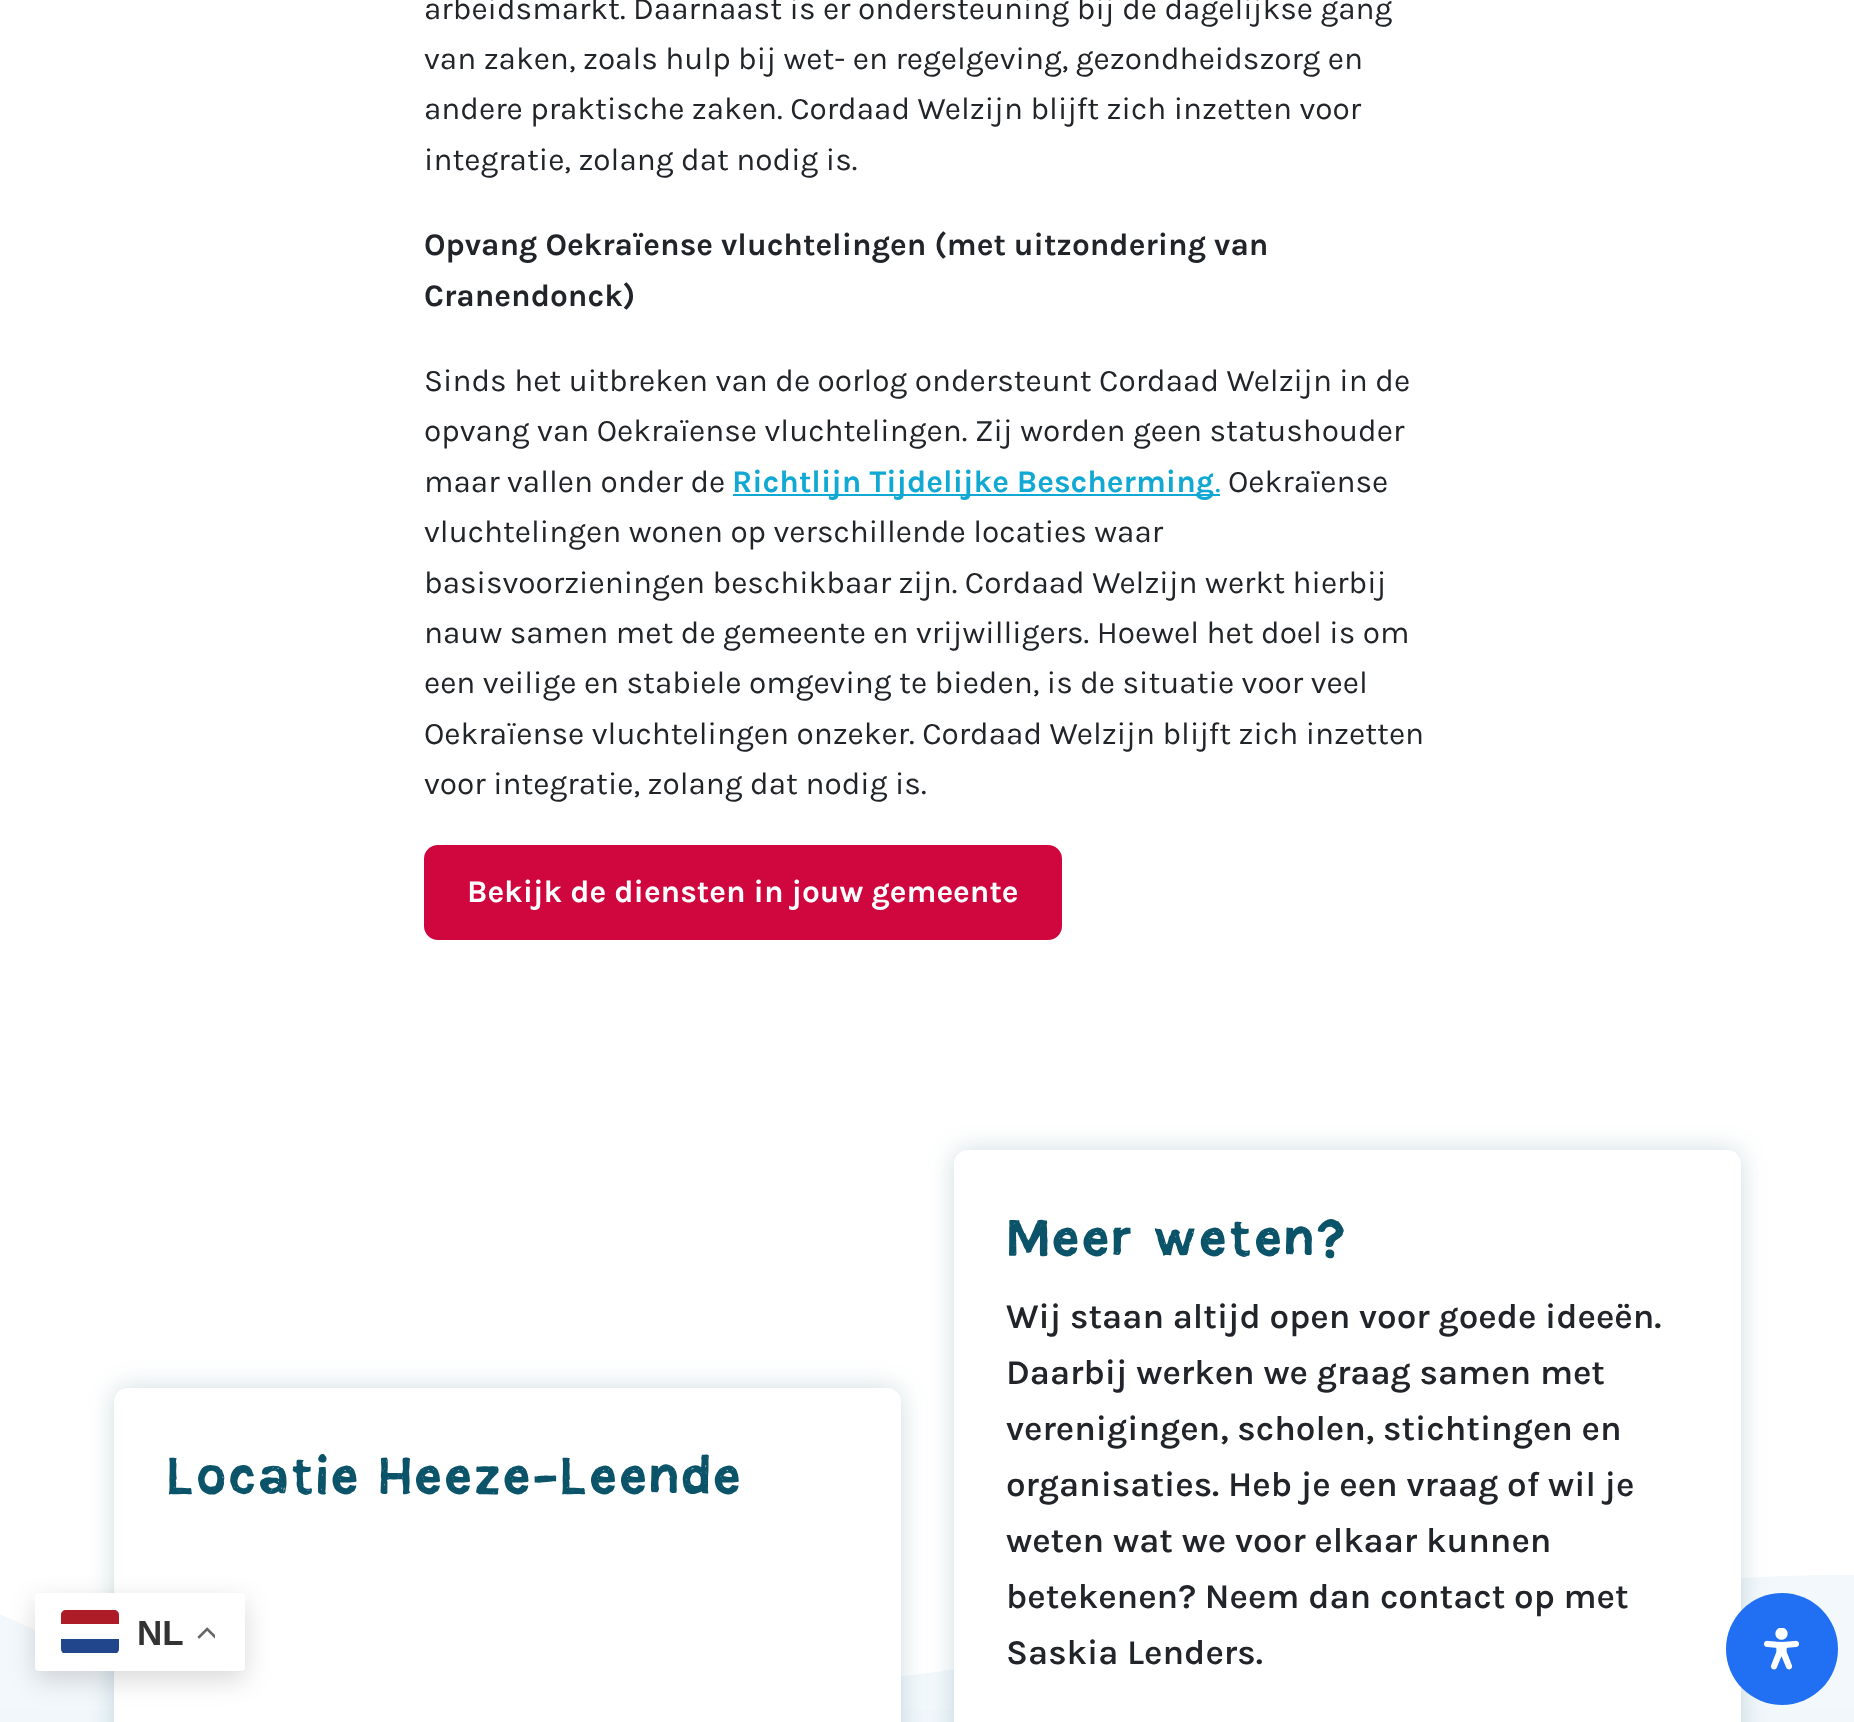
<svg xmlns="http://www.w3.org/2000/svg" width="1854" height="1722">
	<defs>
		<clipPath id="clip1"><rect x="61" y="1610" width="58" height="44" rx="5" /></clipPath>
	</defs>
	<rect width="100%" height="100%" fill="#FFFFFF" />
	<rect x="0" y="1710" width="1854" height="12" fill="#F1F7FB" />
	<image x="0" y="1575" width="1854" height="135" href="assets/img2.png" />
	<rect x="114" y="1388" width="787" height="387" rx="14" fill="#0B5368" fill-opacity="0.2" filter="blur(13px)" />
	<rect x="114" y="1388" width="787" height="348" rx="14" fill="#FFFFFF" />
	<rect x="35" y="1601" width="210" height="79" rx="4" fill="#000000" fill-opacity="0.15" filter="blur(13px)" />
	<rect x="35" y="1593" width="210" height="78" rx="4" fill="#FFFFFF" />
	<g clip-path="url(#clip1)">
		<rect x="61" y="1639" width="58" height="14" fill="#21468B" />
	</g>
	<path d="M66 1610H114C117 1610 119 1612 119 1615V1624H61V1615C61 1612 63 1610 66 1610Z" fill="#AE1C28" />
	<text x="137" y="1645" font-family="Liberation Sans" font-size="35" font-weight="700" fill="#333333">NL</text>
	<image x="197" y="1627" width="18" height="12" href="assets/img1.png" />
	<g font-family="Karla" font-size="31.5" fill="#212529">
		<text x="424" y="19">arbeidsmarkt. Daarnaast is er ondersteuning bij de dagelijkse gang</text>
		<text x="424" y="69">van zaken, zoals hulp bij wet- en regelgeving, gezondheidszorg en</text>
		<text x="424" y="119">andere praktische zaken. Cordaad Welzijn blijft zich inzetten voor</text>
		<text x="424" y="170">integratie, zolang dat nodig is.</text>
	</g>
	<g font-family="Karla" font-size="31.5" font-weight="700" fill="#212529">
		<text x="424" y="255">Opvang Oekraïense vluchtelingen (met uitzondering van</text>
		<text x="424" y="306">Cranendonck)</text>
	</g>
	<g font-family="Karla" font-size="31.5" fill="#212529">
		<text x="424" y="391">Sinds het uitbreken van de oorlog ondersteunt Cordaad Welzijn in de</text>
		<text x="424" y="441">opvang van Oekraïense vluchtelingen. Zij worden geen statushouder</text>
		<text x="424" y="492">maar vallen onder de</text>
	</g>
	<rect x="733" y="494" width="487" height="2" fill="#11A9D3" />
	<text x="732" y="492" font-family="Karla" font-size="31.5" font-weight="700" fill="#11A9D3">Richtlijn Tijdelijke Bescherming</text>
	<text x="1215" y="492" font-family="Karla" font-size="31.5" fill="#11A9D3">.</text>
	<g font-family="Karla" font-size="31.5" fill="#212529">
		<text x="1228" y="492">Oekraïense</text>
		<text x="424" y="542">vluchtelingen wonen op verschillende locaties waar</text>
		<text x="424" y="593">basisvoorzieningen beschikbaar zijn. Cordaad Welzijn werkt hierbij</text>
		<text x="424" y="643">nauw samen met de gemeente en vrijwilligers. Hoewel het doel is om</text>
		<text x="424" y="693">een veilige en stabiele omgeving te bieden, is de situatie voor veel</text>
		<text x="424" y="744">Oekraïense vluchtelingen onzeker. Cordaad Welzijn blijft zich inzetten</text>
		<text x="424" y="794">voor integratie, zolang dat nodig is.</text>
	</g>
	<rect x="425" y="846" width="636" height="93" rx="13" fill="#D0063F" stroke="#D0063F" stroke-width="2" />
	<text x="467" y="902" font-family="Karla" font-size="31.5" font-weight="700" fill="#FFFFFF">Bekijk de diensten in jouw gemeente</text>
	<text x="166" y="1497" font-family="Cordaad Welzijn" font-size="60" fill="#0B5368">Locatie Heeze-Leende</text>
	<rect x="954" y="1150" width="787" height="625" rx="14" fill="#0B5368" fill-opacity="0.2" filter="blur(13px)" />
	<rect x="954" y="1150" width="787" height="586" rx="14" fill="#FFFFFF" />
	<text x="1006" y="1259" font-family="Cordaad Welzijn" font-size="60" fill="#0B5368">Meer weten?</text>
	<g font-family="Karla" font-size="35" font-weight="600" fill="#212529">
		<text x="1006" y="1328">Wij staan altijd open voor goede ideeën.</text>
		<text x="1006" y="1384">Daarbij werken we graag samen met</text>
		<text x="1006" y="1440">verenigingen, scholen, stichtingen en</text>
		<text x="1006" y="1496">organisaties. Heb je een vraag of wil je</text>
		<text x="1006" y="1552">weten wat we voor elkaar kunnen</text>
		<text x="1006" y="1608">betekenen? Neem dan contact op met</text>
		<text x="1006" y="1664">Saskia Lenders.</text>
	</g>
	<circle cx="1782" cy="1649" r="56" fill="#216FF3" />
	<image x="1763" y="1628" width="37" height="42" href="assets/img3.png" />
</svg>
